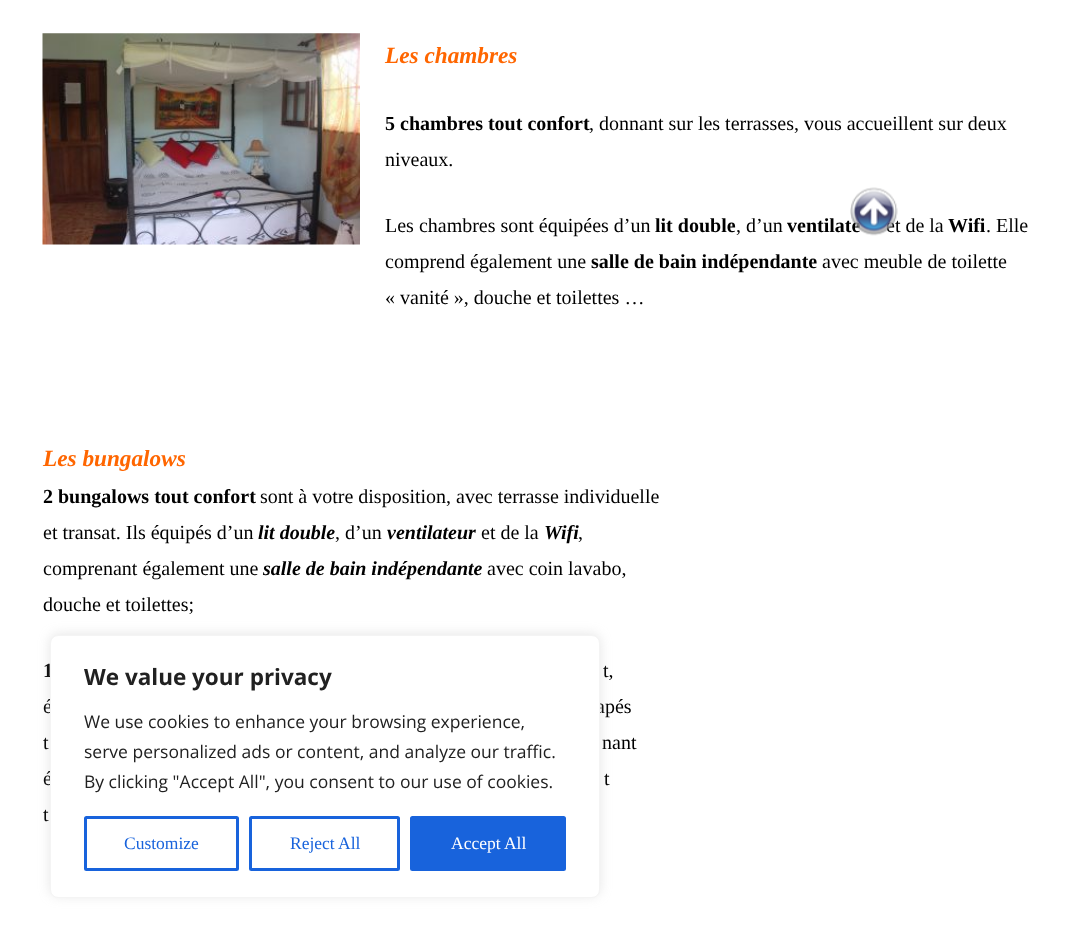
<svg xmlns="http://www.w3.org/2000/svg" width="1084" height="947">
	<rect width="100%" height="100%" fill="#FFFFFF" />
	<image x="42" y="33" width="318" height="212" href="assets/img1.png" />
	<text x="385" y="63" font-family="Liberation Serif" font-size="23.25" font-weight="700" font-style="italic" fill="#FF6600">Les chambres</text>
	<text x="385" y="130" font-family="Liberation Serif" font-size="20" font-weight="700" fill="#000000">5 chambres tout confort</text>
	<g font-family="Liberation Serif" font-size="20" fill="#000000">
		<text x="589" y="130">, donnant sur les terrasses, vous accueillent sur deux</text>
		<text x="385" y="166">niveaux.</text>
		<text x="385" y="232">Les chambres sont équipées d’un</text>
	</g>
	<text x="655" y="232" font-family="Liberation Serif" font-size="20" font-weight="700" fill="#000000">lit double</text>
	<text x="736" y="232" font-family="Liberation Serif" font-size="20" fill="#000000">, d’un</text>
	<text x="787" y="232" font-family="Liberation Serif" font-size="20" font-weight="700" fill="#000000">ventilate</text>
	<text x="886" y="232" font-family="Liberation Serif" font-size="20" fill="#000000">et de la</text>
	<text x="948" y="232" font-family="Liberation Serif" font-size="20" font-weight="700" fill="#000000">Wifi</text>
	<g font-family="Liberation Serif" font-size="20" fill="#000000">
		<text x="986" y="232">. Elle</text>
		<text x="385" y="268">comprend également une</text>
	</g>
	<text x="591" y="268" font-family="Liberation Serif" font-size="20" font-weight="700" fill="#000000">salle de bain indépendante</text>
	<g font-family="Liberation Serif" font-size="20" fill="#000000">
		<text x="822" y="268">avec meuble de toilette</text>
		<text x="385" y="304">« vanité », douche et toilettes …</text>
	</g>
	<text x="43" y="466" font-family="Liberation Serif" font-size="23.25" font-weight="700" font-style="italic" fill="#FF6600">Les bungalows</text>
	<text x="43" y="503" font-family="Liberation Serif" font-size="20" font-weight="700" fill="#000000">2 bungalows tout confort</text>
	<g font-family="Liberation Serif" font-size="20" fill="#000000">
		<text x="260" y="503">sont à votre disposition, avec terrasse individuelle</text>
		<text x="43" y="539">et transat. Ils équipés d’un</text>
	</g>
	<text x="258" y="539" font-family="Liberation Serif" font-size="20" font-weight="700" font-style="italic" fill="#000000">lit double</text>
	<text x="335" y="539" font-family="Liberation Serif" font-size="20" fill="#000000">, d’un</text>
	<text x="387" y="539" font-family="Liberation Serif" font-size="20" font-weight="700" font-style="italic" fill="#000000">ventilateur</text>
	<text x="481" y="539" font-family="Liberation Serif" font-size="20" fill="#000000">et de la</text>
	<text x="544" y="539" font-family="Liberation Serif" font-size="20" font-weight="700" font-style="italic" fill="#000000">Wifi</text>
	<g font-family="Liberation Serif" font-size="20" fill="#000000">
		<text x="578" y="539">,</text>
		<text x="43" y="575">comprenant également une</text>
	</g>
	<text x="263" y="575" font-family="Liberation Serif" font-size="20" font-weight="700" font-style="italic" fill="#000000">salle de bain indépendante</text>
	<g font-family="Liberation Serif" font-size="20" fill="#000000">
		<text x="487" y="575">avec coin lavabo,</text>
		<text x="43" y="611">douche et toilettes;</text>
	</g>
	<text x="43" y="677" font-family="Liberation Serif" font-size="20" font-weight="700" fill="#000000">1</text>
	<g font-family="Liberation Serif" font-size="20" fill="#000000">
		<text x="603" y="677">t,</text>
		<text x="43" y="713">é</text>
		<text x="596" y="713">apés</text>
		<text x="43" y="749">t</text>
		<text x="602" y="749">nant</text>
		<text x="43" y="785">é</text>
		<text x="604" y="785">t</text>
		<text x="43" y="821">t</text>
	</g>
	<image x="850" y="187" width="48" height="49" href="assets/img2.png" />
	<rect x="50" y="634" width="550" height="262" rx="8" fill="#ACABAB" fill-opacity="0.3" filter="blur(6px)" />
	<rect x="50.5" y="635.5" width="549" height="262" rx="7.5" fill="#FFFFFF" stroke="#F4F4F4" />
	<text x="84" y="685" font-family="Open Sans" font-size="22.5" font-weight="700" fill="#212121">We value your privacy</text>
	<g font-family="Open Sans" font-size="17.5" fill="#212121">
		<text x="84" y="728">We use cookies to enhance your browsing experience,</text>
		<text x="84" y="758">serve personalized ads or content, and analyze our traffic.</text>
		<text x="84" y="788">By clicking "Accept All", you consent to our use of cookies.</text>
	</g>
	<rect x="85.5" y="817.5" width="152" height="52" rx="1" fill="none" stroke="#1863DC" stroke-width="3" />
	<text x="124" y="849" font-family="Liberation Serif" font-size="17.5" fill="#1863DC">Customize</text>
	<rect x="250.5" y="817.5" width="148" height="52" rx="1" fill="none" stroke="#1863DC" stroke-width="3" />
	<text x="290" y="849" font-family="Liberation Serif" font-size="17.5" fill="#1863DC">Reject All</text>
	<rect x="411.5" y="817.5" width="153" height="52" rx="1" fill="#1863DC" stroke="#1863DC" stroke-width="3" />
	<text x="451" y="849" font-family="Liberation Serif" font-size="17.5" fill="#FFFFFF">Accept All</text>
</svg>
